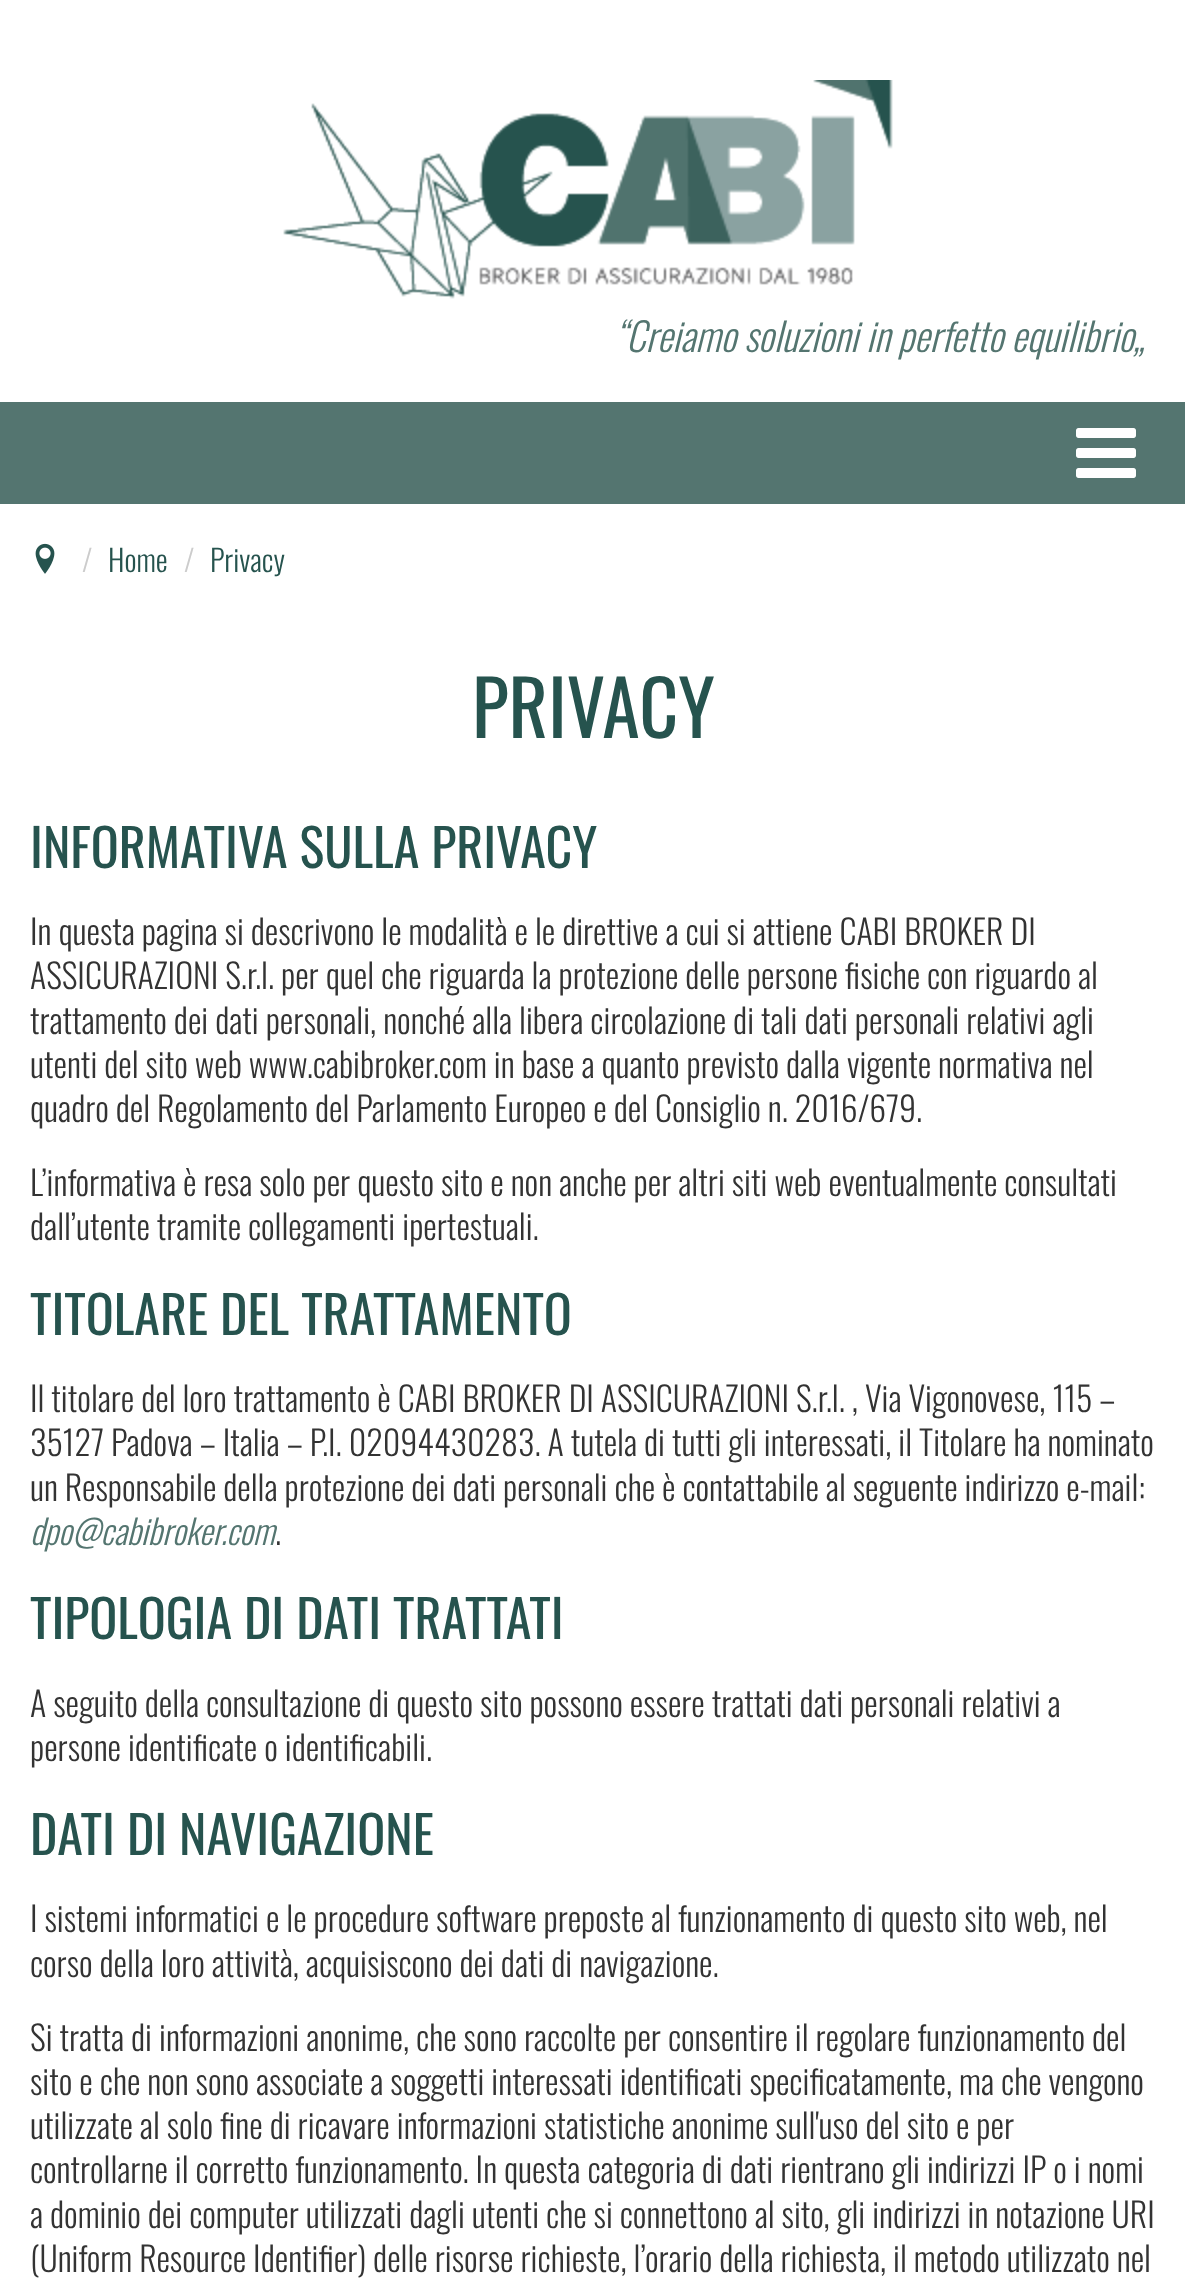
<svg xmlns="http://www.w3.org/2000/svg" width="1185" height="2279">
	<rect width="100%" height="100%" fill="#FFFFFF" />
	<image x="283" y="80" width="610" height="219" href="assets/img1.png" />
	<text x="615" y="352" font-family="Oswald" font-size="39" font-weight="300" font-style="italic" fill="#547570">“Creiamo soluzioni in perfetto equilibrio„</text>
	<rect x="0" y="402" width="1185" height="102" fill="#547570" />
	<image x="1076" y="428" width="60" height="50" href="assets/img2.png" />
	<image x="35" y="543" width="20" height="31" href="assets/img3.png" />
	<text x="82" y="572" font-family="Oswald" font-size="30" font-weight="300" fill="#CCCCCC">/</text>
	<text x="108" y="572" font-family="Oswald" font-size="30" font-weight="300" fill="#26534E">Home</text>
	<text x="184" y="572" font-family="Oswald" font-size="30" font-weight="300" fill="#CCCCCC">/</text>
	<text x="210" y="572" font-family="Oswald" font-size="30" font-weight="300" fill="#26534E">Privacy</text>
	<text x="472" y="738" font-family="Oswald" font-size="76" fill="#26534E">PRIVACY</text>
	<text x="30" y="868" font-family="Oswald" font-size="52" fill="#26534E">INFORMATIVA SULLA PRIVACY</text>
	<g font-family="Oswald" font-size="34" font-weight="300" fill="#333333">
		<text x="30" y="945">In questa pagina si descrivono le modalità e le direttive a cui si attiene CABI BROKER DI</text>
		<text x="30" y="989">ASSICURAZIONI S.r.l. per quel che riguarda la protezione delle persone fisiche con riguardo al</text>
		<text x="30" y="1034">trattamento dei dati personali, nonché alla libera circolazione di tali dati personali relativi agli</text>
		<text x="30" y="1078">utenti del sito web www.cabibroker.com in base a quanto previsto dalla vigente normativa nel</text>
		<text x="30" y="1122">quadro del Regolamento del Parlamento Europeo e del Consiglio n. 2016/679.</text>
		<text x="30" y="1196">L’informativa è resa solo per questo sito e non anche per altri siti web eventualmente consultati</text>
		<text x="30" y="1240">dall’utente tramite collegamenti ipertestuali.</text>
	</g>
	<text x="30" y="1335" font-family="Oswald" font-size="52" fill="#26534E">TITOLARE DEL TRATTAMENTO</text>
	<g font-family="Oswald" font-size="34" font-weight="300" fill="#333333">
		<text x="30" y="1412">Il titolare del loro trattamento è CABI BROKER DI ASSICURAZIONI S.r.l. , Via Vigonovese, 115 –</text>
		<text x="30" y="1456">35127 Padova – Italia – P.I. 02094430283. A tutela di tutti gli interessati, il Titolare ha nominato</text>
		<text x="30" y="1501">un Responsabile della protezione dei dati personali che è contattabile al seguente indirizzo e-mail:</text>
	</g>
	<text x="30" y="1545" font-family="Oswald" font-size="34" font-weight="300" font-style="italic" fill="#547570">dpo@cabibroker.com</text>
	<text x="275" y="1545" font-family="Oswald" font-size="34" font-weight="300" fill="#333333">.</text>
	<text x="30" y="1639" font-family="Oswald" font-size="52" fill="#26534E">TIPOLOGIA DI DATI TRATTATI</text>
	<g font-family="Oswald" font-size="34" font-weight="300" fill="#333333">
		<text x="30" y="1717">A seguito della consultazione di questo sito possono essere trattati dati personali relativi a</text>
		<text x="30" y="1761">persone identificate o identificabili.</text>
	</g>
	<text x="30" y="1855" font-family="Oswald" font-size="52" fill="#26534E">DATI DI NAVIGAZIONE</text>
	<g font-family="Oswald" font-size="34" font-weight="300" fill="#333333">
		<text x="30" y="1932">I sistemi informatici e le procedure software preposte al funzionamento di questo sito web, nel</text>
		<text x="30" y="1977">corso della loro attività, acquisiscono dei dati di navigazione.</text>
		<text x="30" y="2051">Si tratta di informazioni anonime, che sono raccolte per consentire il regolare funzionamento del</text>
		<text x="30" y="2095">sito e che non sono associate a soggetti interessati identificati specificatamente, ma che vengono</text>
		<text x="30" y="2139">utilizzate al solo fine di ricavare informazioni statistiche anonime sull'uso del sito e per</text>
		<text x="30" y="2183">controllarne il corretto funzionamento. In questa categoria di dati rientrano gli indirizzi IP o i nomi</text>
		<text x="30" y="2228">a dominio dei computer utilizzati dagli utenti che si connettono al sito, gli indirizzi in notazione URI</text>
		<text x="30" y="2272">(Uniform Resource Identifier) delle risorse richieste, l’orario della richiesta, il metodo utilizzato nel</text>
	</g>
</svg>
